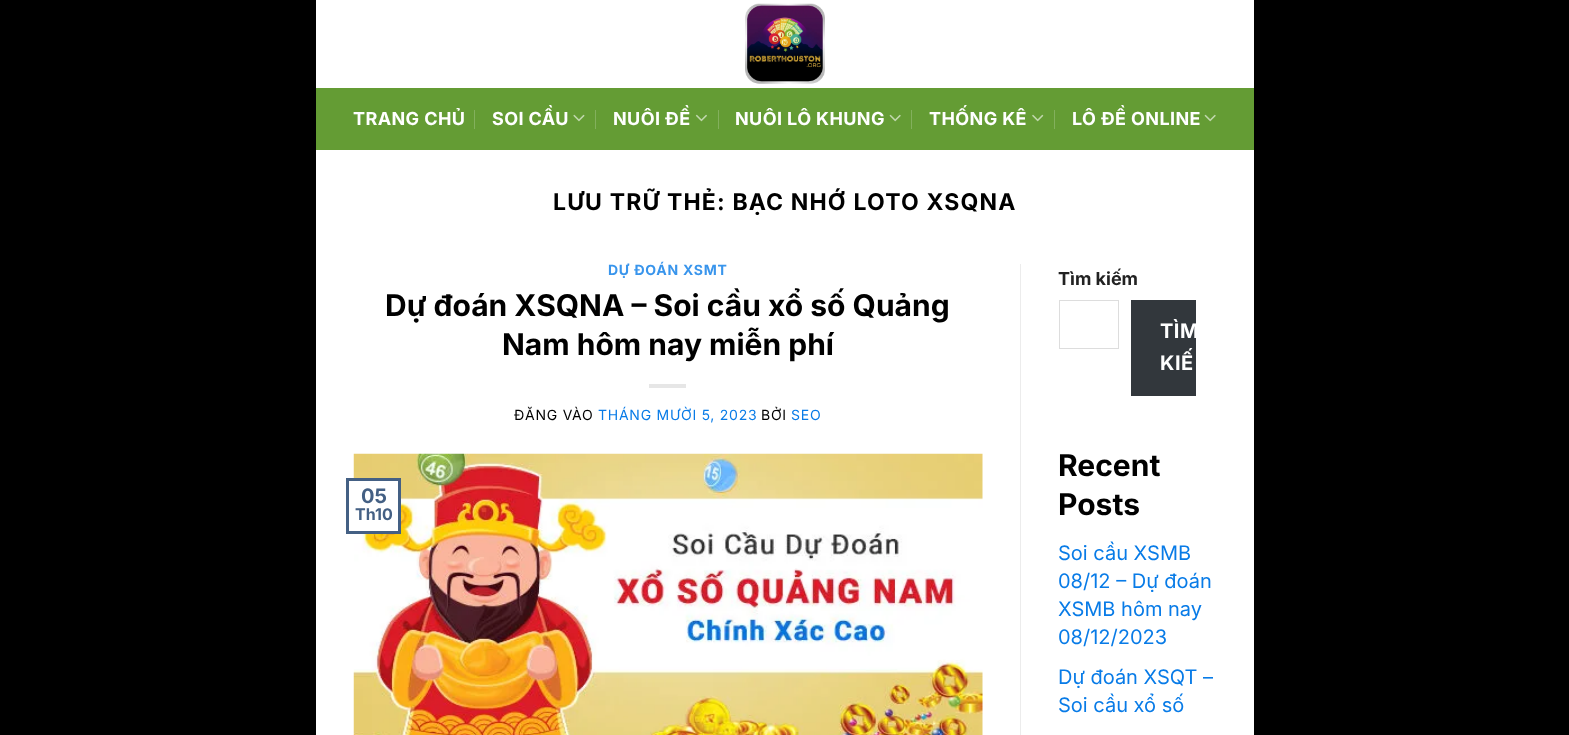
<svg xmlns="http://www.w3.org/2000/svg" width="1569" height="735">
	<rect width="100%" height="100%" fill="#000000" />
	<rect x="316" y="0" width="938" height="735" fill="#FFFFFF" />
	<image x="745" y="3" width="80" height="81" href="assets/img1.png" />
	<rect x="316" y="88" width="938" height="62" fill="#649C34" />
	<text x="353" y="125" font-family="Inter" font-size="18" font-weight="700" letter-spacing="0.4" fill="#FFFFFF">TRANG CHỦ</text>
	<rect x="474" y="110" width="1" height="19" fill="#83B05D" />
	<text x="492" y="125" font-family="Inter" font-size="18" font-weight="700" letter-spacing="0.4" fill="#FFFFFF">SOI CẦU</text>
	<image x="573" y="114" width="12" height="8" href="assets/img2.png" />
	<rect x="595" y="110" width="1" height="19" fill="#83B05D" />
	<text x="613" y="125" font-family="Inter" font-size="18" font-weight="700" letter-spacing="0.4" fill="#FFFFFF">NUÔI ĐỀ</text>
	<image x="695" y="114" width="12" height="8" href="assets/img3.png" />
	<rect x="718" y="110" width="1" height="19" fill="#83B05D" />
	<text x="735" y="125" font-family="Inter" font-size="18" font-weight="700" letter-spacing="0.4" fill="#FFFFFF">NUÔI LÔ KHUNG</text>
	<image x="889" y="114" width="12" height="8" href="assets/img4.png" />
	<rect x="911" y="110" width="1" height="19" fill="#83B05D" />
	<text x="929" y="125" font-family="Inter" font-size="18" font-weight="700" letter-spacing="0.4" fill="#FFFFFF">THỐNG KÊ</text>
	<image x="1032" y="114" width="12" height="8" href="assets/img5.png" />
	<rect x="1054" y="110" width="1" height="19" fill="#83B05D" />
	<text x="1072" y="125" font-family="Inter" font-size="18" font-weight="700" letter-spacing="0.4" fill="#FFFFFF">LÔ ĐỀ ONLINE</text>
	<image x="1204" y="114" width="12" height="8" href="assets/img4.png" />
	<text x="553" y="210" font-family="Inter" font-size="23" font-weight="700" letter-spacing="1.15" fill="#000000">LƯU TRỮ THẺ: BẠC NHỚ LOTO XSQNA</text>
	<text x="608" y="275" font-family="Inter" font-size="14" font-weight="700" letter-spacing="0.75" fill="#3995EC">DỰ ĐOÁN XSMT</text>
	<g font-family="Inter" font-size="30" font-weight="700" fill="#000000">
		<text x="385" y="316">Dự đoán XSQNA – Soi cầu xổ số Quảng</text>
		<text x="502" y="355">Nam hôm nay miễn phí</text>
	</g>
	<rect x="649" y="384" width="37" height="4" fill="#E6E6E6" />
	<text x="514" y="420" font-family="Inter" font-size="14" letter-spacing="0.75" fill="#000000">ĐĂNG VÀO</text>
	<text x="598" y="420" font-family="Inter" font-size="14" letter-spacing="0.75" fill="#087BE7">THÁNG MƯỜI 5, 2023</text>
	<text x="761" y="420" font-family="Inter" font-size="14" letter-spacing="0.75" fill="#000000">BỞI</text>
	<text x="791" y="420" font-family="Inter" font-size="14" letter-spacing="0.75" fill="#087BE7">SEO</text>
	<image x="353" y="453" width="630" height="282" href="assets/img6.png" />
	<rect x="353" y="481" width="45" height="50" fill="#FFFFFF" />
	<rect x="347.5" y="479.5" width="52" height="53" fill="none" stroke="#446084" stroke-width="3" />
	<text x="361" y="503" font-family="Inter" font-size="20" font-weight="700" fill="#446084">05</text>
	<text x="355" y="520" font-family="Inter" font-size="16" font-weight="700" fill="#446084">Th10</text>
	<rect x="1020" y="264" width="1" height="471" fill="#ECECEC" />
	<text x="1058" y="285" font-family="Inter" font-size="18" font-weight="700" fill="#222222">Tìm kiếm</text>
	<rect x="1059.5" y="300.5" width="59" height="48" fill="none" stroke="#DDDDDD" />
	<rect x="1131" y="300" width="65" height="96" fill="#32373C" />
	<g font-family="Inter" font-size="20" font-weight="700" letter-spacing="0.5" fill="#FFFFFF">
		<text x="1160" y="338">TÌM</text>
		<text x="1160" y="370">KIẾ</text>
	</g>
	<g font-family="Inter" font-size="30" font-weight="700" fill="#000000">
		<text x="1058" y="476">Recent</text>
		<text x="1058" y="515">Posts</text>
	</g>
	<g font-family="Inter" font-size="20" fill="#087BE7">
		<text x="1058" y="560">Soi cầu XSMB</text>
		<text x="1058" y="588">08/12 – Dự đoán</text>
		<text x="1058" y="616">XSMB hôm nay</text>
		<text x="1058" y="644">08/12/2023</text>
		<text x="1058" y="684">Dự đoán XSQT –</text>
		<text x="1058" y="712">Soi cầu xổ số</text>
	</g>
</svg>
